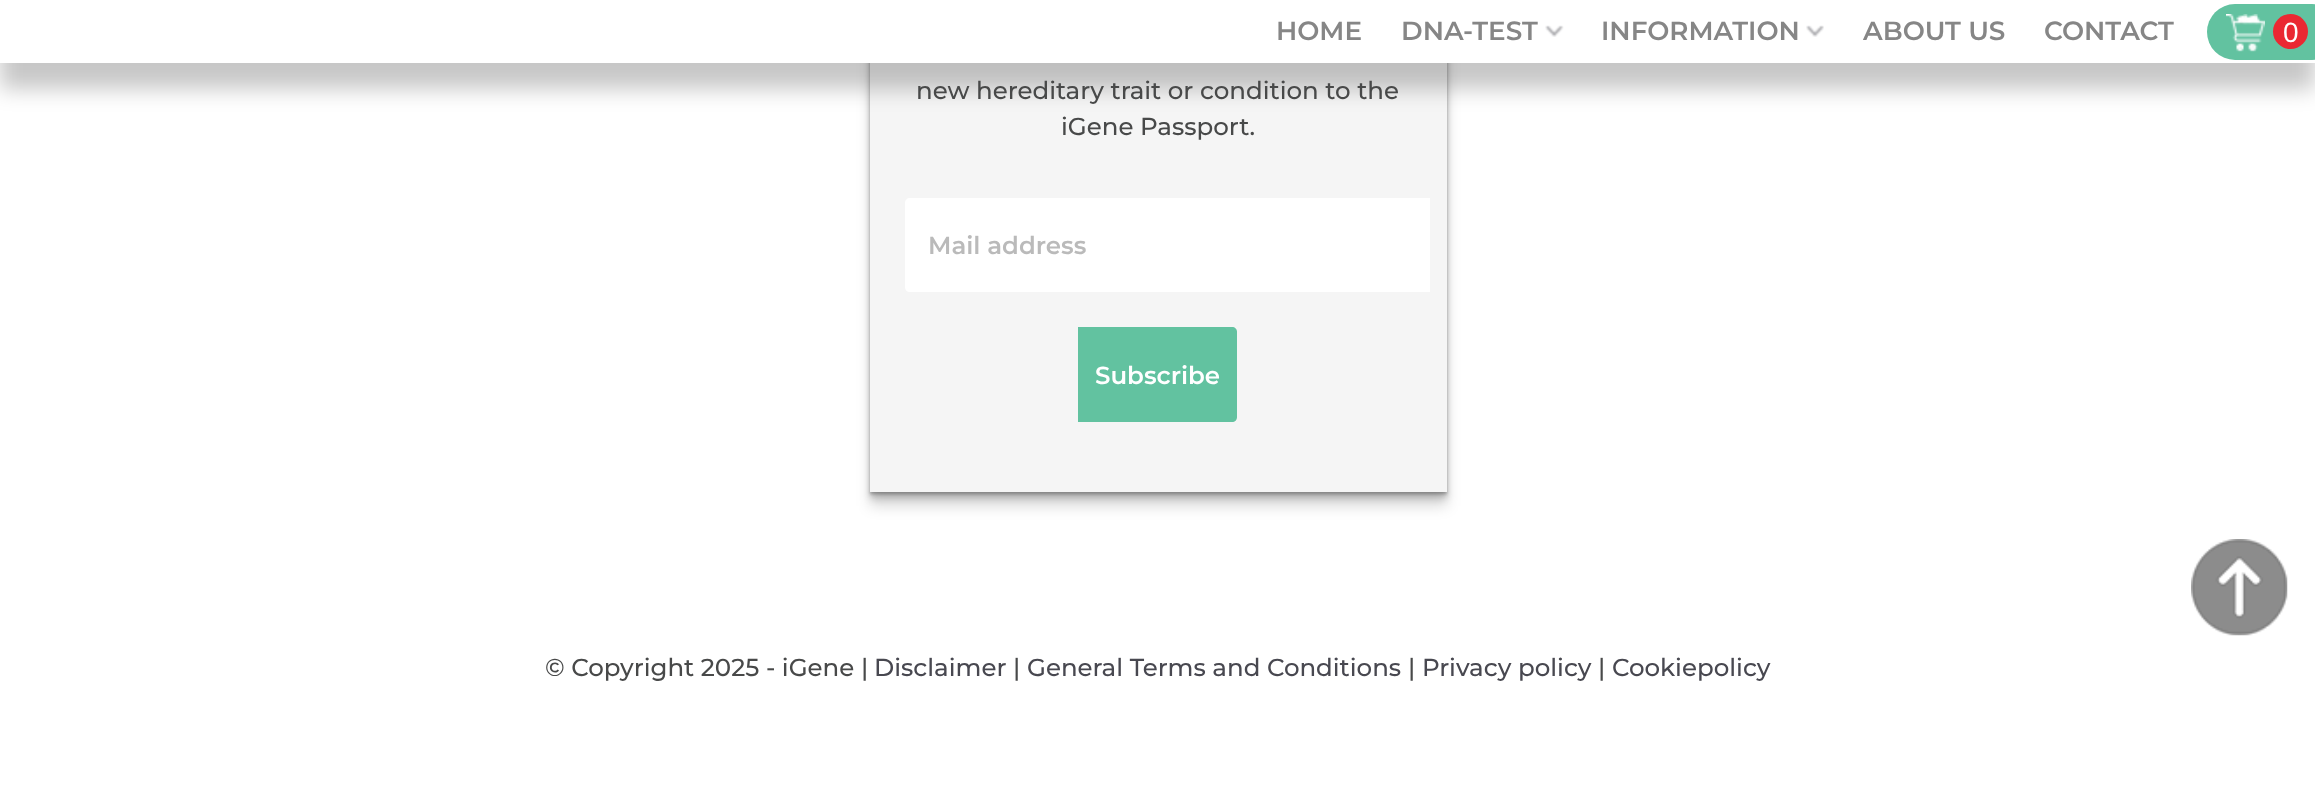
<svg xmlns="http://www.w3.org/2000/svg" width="2315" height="803">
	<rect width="100%" height="100%" fill="#FFFFFF" />
	<rect x="870" y="-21" width="577" height="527" fill="#000000" fill-opacity="0.15" filter="blur(7px)" />
	<rect x="870" y="-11" width="577" height="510" fill="#000000" fill-opacity="0.15" filter="blur(3.5px)" />
	<rect x="870" y="-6" width="577" height="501" fill="#000000" fill-opacity="0.15" filter="blur(2px)" />
	<rect x="870" y="-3" width="577" height="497" fill="#000000" fill-opacity="0.15" filter="blur(1px)" />
	<rect x="870" y="63" width="577" height="429" fill="#F5F5F5" />
	<rect x="0" y="26" width="2315" height="63" fill="#000000" fill-opacity="0.22" filter="blur(10.5px)" />
	<rect x="0" y="0" width="2315" height="63" fill="#FFFFFF" />
	<g font-family="'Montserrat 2'" font-size="26.25" font-weight="100" fill="#868686">
		<text x="1276" y="40">HOME</text>
		<text x="1401" y="40">DNA-TEST</text>
	</g>
	<image x="1545" y="25" width="19" height="12" href="assets/img1.png" />
	<text x="1601" y="40" font-family="'Montserrat 2'" font-size="26.25" font-weight="100" fill="#868686">INFORMATION</text>
	<image x="1806" y="25" width="18" height="12" href="assets/img2.png" />
	<g font-family="'Montserrat 2'" font-size="26.25" font-weight="100" fill="#868686">
		<text x="1863" y="40">ABOUT US</text>
		<text x="2044" y="40">CONTACT</text>
	</g>
	<rect x="2207" y="4" width="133" height="56" rx="28" fill="#62C2A0" />
	<image x="2226" y="14" width="39" height="38" href="assets/img3.png" />
	<circle cx="2290.5" cy="31.5" r="17.5" fill="#EA2832" />
	<text x="2283" y="42" font-family="Liberation Sans" font-size="28" fill="#FFFFFF">0</text>
	<g font-family="Montserrat" font-size="24.5" font-weight="100" fill="#484949">
		<text x="916" y="99">new hereditary trait or condition to the</text>
		<text x="1061" y="135">iGene Passport.</text>
	</g>
	<path d="M910 198H1430V292H910C907 292 905 290 905 287V203C905 200 907 198 910 198Z" fill="#FFFFFF" />
	<text x="928" y="254" font-family="'Montserrat 2'" font-size="24.5" font-weight="100" fill="#BABABA">Mail address</text>
	<path d="M1078 327H1232C1235 327 1237 329 1237 332V417C1237 420 1235 422 1232 422H1078Z" fill="#62C2A0" />
	<text x="1095" y="384" font-family="'Montserrat 2'" font-size="24.5" font-weight="100" fill="#FFFFFF">Subscribe</text>
	<text x="545" y="676" font-family="Montserrat" font-size="24.5" font-weight="100" fill="#484949">© Copyright 2025 - iGene |</text>
	<text x="874" y="676" font-family="Montserrat" font-size="24.5" font-weight="100" fill="#484850">Disclaimer</text>
	<text x="1013" y="676" font-family="Montserrat" font-size="24.5" font-weight="100" fill="#484949">|</text>
	<text x="1027" y="676" font-family="Montserrat" font-size="24.5" font-weight="100" fill="#484850">General Terms and Conditions</text>
	<text x="1408" y="676" font-family="Montserrat" font-size="24.5" font-weight="100" fill="#484949">|</text>
	<text x="1422" y="676" font-family="Montserrat" font-size="24.5" font-weight="100" fill="#484850">Privacy policy</text>
	<text x="1598" y="676" font-family="Montserrat" font-size="24.5" font-weight="100" fill="#484949">|</text>
	<text x="1612" y="676" font-family="Montserrat" font-size="24.5" font-weight="100" fill="#484850">Cookiepolicy</text>
	<image x="2191" y="539" width="97" height="97" href="assets/img4.png" />
</svg>
